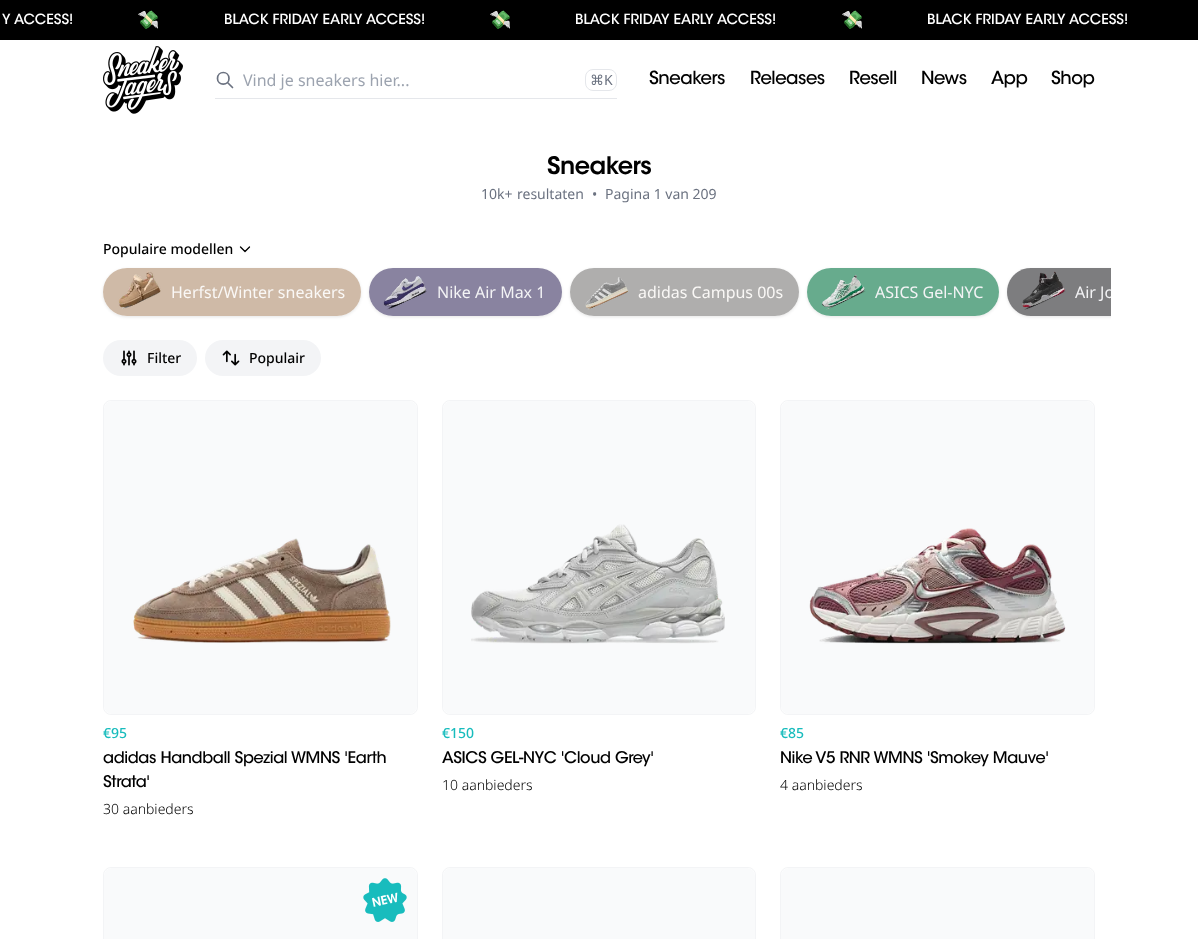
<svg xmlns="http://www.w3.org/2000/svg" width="1198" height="939">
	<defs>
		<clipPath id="clip1"><path d="M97 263H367V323H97ZM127 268H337C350.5 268 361 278.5 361 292C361 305.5 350.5 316 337 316H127C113.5 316 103 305.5 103 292C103 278.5 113.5 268 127 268Z" clip-rule="evenodd" /></clipPath>
		<clipPath id="clip2"><path d="M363 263H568V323H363ZM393 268H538C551.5 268 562 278.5 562 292C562 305.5 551.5 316 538 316H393C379.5 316 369 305.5 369 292C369 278.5 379.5 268 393 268Z" clip-rule="evenodd" /></clipPath>
		<clipPath id="clip3"><path d="M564 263H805V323H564ZM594 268H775C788.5 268 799 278.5 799 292C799 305.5 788.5 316 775 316H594C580.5 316 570 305.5 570 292C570 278.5 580.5 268 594 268Z" clip-rule="evenodd" /></clipPath>
		<clipPath id="clip4"><path d="M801 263H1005V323H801ZM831 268H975C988.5 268 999 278.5 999 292C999 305.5 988.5 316 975 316H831C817.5 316 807 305.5 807 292C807 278.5 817.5 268 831 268Z" clip-rule="evenodd" /></clipPath>
		<clipPath id="clip5"><rect x="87" y="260" width="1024" height="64" /></clipPath>
		<clipPath id="clip6"><path d="M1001 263H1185V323H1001ZM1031 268H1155C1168.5 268 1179 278.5 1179 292C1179 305.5 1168.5 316 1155 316H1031C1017.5 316 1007 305.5 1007 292C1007 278.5 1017.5 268 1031 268Z" clip-rule="evenodd" /></clipPath>
		<clipPath id="clip7"><rect x="87" y="260" width="1024" height="64" /></clipPath>
		<clipPath id="clip8"><rect x="104" y="401" width="313" height="313" rx="7" /></clipPath>
		<clipPath id="clip9"><rect x="443" y="401" width="312" height="313" rx="7" /></clipPath>
		<clipPath id="clip10"><rect x="781" y="401" width="313" height="313" rx="7" /></clipPath>
		<clipPath id="clip11"><rect x="104" y="868" width="313" height="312" rx="7" /></clipPath>
		<clipPath id="clip12"><rect x="443" y="868" width="312" height="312" rx="7" /></clipPath>
		<clipPath id="clip13"><rect x="781" y="868" width="313" height="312" rx="7" /></clipPath>
	</defs>
	<rect width="100%" height="100%" fill="#FFFFFF" />
	<rect x="0" y="0" width="1198" height="40" fill="#000000" />
	<text x="2" y="24" font-family="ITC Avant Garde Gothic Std" font-size="14" font-weight="500" fill="#FFFFFF">Y ACCESS!</text>
	<text x="137" y="26" font-family="Noto Color Emoji" font-size="18" fill="#FFFFFF">💸</text>
	<text x="224" y="24" font-family="ITC Avant Garde Gothic Std" font-size="14" font-weight="500" fill="#FFFFFF">BLACK FRIDAY EARLY ACCESS!</text>
	<text x="489" y="26" font-family="Noto Color Emoji" font-size="18" fill="#FFFFFF">💸</text>
	<text x="575" y="24" font-family="ITC Avant Garde Gothic Std" font-size="14" font-weight="500" fill="#FFFFFF">BLACK FRIDAY EARLY ACCESS!</text>
	<text x="841" y="26" font-family="Noto Color Emoji" font-size="18" fill="#FFFFFF">💸</text>
	<text x="927" y="24" font-family="ITC Avant Garde Gothic Std" font-size="14" font-weight="500" fill="#FFFFFF">BLACK FRIDAY EARLY ACCESS!</text>
	<image x="103" y="46" width="80" height="68" href="assets/img1.png" />
	<rect x="215" y="98" width="402" height="1" fill="#E5E7EB" />
	<path d="M232.5 87.5L227.5 82.5M229 78.5C229 86 217.5 86 217.5 78.5C217.5 70.5 229 70.5 229 78.5Z" fill="none" stroke="#6B7280" stroke-width="1.7" stroke-linecap="round" stroke-linejoin="round" />
	<text x="243" y="86" font-family="Noto Sans" font-size="16" fill="#9CA3AF">Vind je sneakers hier...</text>
	<rect x="585.5" y="69.5" width="31" height="21" rx="7.5" fill="none" stroke="#E5E7EB" />
	<text x="590" y="85" font-family="DejaVu Sans" font-size="14" fill="#6B7280">⌘</text>
	<text x="604" y="85" font-family="Noto Sans" font-size="14" fill="#6B7280">K</text>
	<g font-family="ITC Avant Garde Gothic Std" font-size="18" font-weight="500" letter-spacing="-0.5" fill="#000000">
		<text x="649" y="84">Sneakers</text>
		<text x="750" y="84">Releases</text>
		<text x="849" y="84">Resell</text>
		<text x="921" y="84">News</text>
		<text x="991" y="84">App</text>
		<text x="1051" y="84">Shop</text>
	</g>
	<text x="547" y="174" font-family="ITC Avant Garde Gothic Std" font-size="24" font-weight="600" letter-spacing="-0.5" fill="#000000">Sneakers</text>
	<g font-family="Noto Sans" font-size="14" fill="#6B7280">
		<text x="481" y="199">10k+</text>
		<text x="517" y="199">resultaten</text>
		<text x="592" y="199">•</text>
		<text x="605" y="199">Pagina 1 van 209</text>
	</g>
	<text x="103" y="254" font-family="Noto Sans" font-size="14" font-weight="500" fill="#000000">Populaire modellen</text>
	<path d="M249.5 247L245 251.5L240.5 247" fill="none" stroke="#000000" stroke-width="1.3" stroke-linecap="round" stroke-linejoin="round" />
	<g clip-path="url(#clip1)">
		<rect x="103" y="269" width="258" height="48" rx="24" fill="#000000" fill-opacity="0.1" filter="blur(1.5px)" />
	</g>
	<rect x="103" y="268" width="258" height="48" rx="24" fill="#AF8C6C" fill-opacity="0.6" />
	<image x="118" y="271" width="43" height="38" href="assets/img2.png" />
	<text x="171" y="298" font-family="Noto Sans" font-size="16" fill="#FAF8F6">Herfst/Winter sneakers</text>
	<g clip-path="url(#clip2)">
		<rect x="369" y="269" width="193" height="48" rx="24" fill="#000000" fill-opacity="0.1" filter="blur(1.5px)" />
	</g>
	<rect x="369" y="268" width="193" height="48" rx="24" fill="#3A3060" fill-opacity="0.6" />
	<image x="383" y="276" width="44" height="34" href="assets/img3.png" />
	<text x="437" y="298" font-family="Noto Sans" font-size="16" fill="#F3F3F5">Nike Air Max 1</text>
	<g clip-path="url(#clip3)">
		<rect x="570" y="269" width="229" height="48" rx="24" fill="#000000" fill-opacity="0.1" filter="blur(1.5px)" />
	</g>
	<rect x="570" y="268" width="229" height="48" rx="24" fill="#7A7877" fill-opacity="0.6" />
	<image x="585" y="277" width="44" height="33" href="assets/img4.png" />
	<text x="638" y="298" font-family="Noto Sans" font-size="16" fill="#FAF8F6">adidas Campus 00s</text>
	<g clip-path="url(#clip4)">
		<rect x="807" y="269" width="192" height="48" rx="24" fill="#000000" fill-opacity="0.1" filter="blur(1.5px)" />
	</g>
	<rect x="807" y="268" width="192" height="48" rx="24" fill="#027341" fill-opacity="0.6" />
	<image x="822" y="274" width="44" height="36" href="assets/img5.png" />
	<text x="875" y="298" font-family="Noto Sans" font-size="16" fill="#F3F3F5">ASICS Gel-NYC</text>
	<g clip-path="url(#clip5)">
		<g clip-path="url(#clip6)">
			<rect x="1007" y="269" width="172" height="48" rx="24" fill="#000000" fill-opacity="0.1" filter="blur(1.5px)" />
		</g>
	</g>
	<path d="M1031 268H1111V316H1031C1017.5 316 1007 305.5 1007 292C1007 278.5 1017.5 268 1031 268Z" fill="#272729" fill-opacity="0.6" />
	<image x="1022" y="271" width="44" height="39" href="assets/img6.png" />
	<g clip-path="url(#clip7)">
		<text x="1075" y="298" font-family="Noto Sans" font-size="16" fill="#F3F3F5">Air Jo</text>
	</g>
	<rect x="103" y="340" width="94" height="36" rx="18" fill="#F3F4F6" />
	<image x="121" y="350" width="16" height="16" href="assets/img7.png" />
	<text x="147" y="363" font-family="Noto Sans" font-size="14" font-weight="500" fill="#000000">Filter</text>
	<rect x="205" y="340" width="116" height="36" rx="18" fill="#F3F4F6" />
	<image x="222" y="350" width="18" height="16" href="assets/img8.png" />
	<text x="249" y="363" font-family="Noto Sans" font-size="14" font-weight="500" fill="#000000">Populair</text>
	<rect x="103.5" y="400.5" width="314" height="314" rx="7.5" fill="none" stroke="#F3F4F6" />
	<g clip-path="url(#clip8)">
		<rect x="104" y="401" width="313" height="313" rx="8" fill="#F9FAFB" />
	</g>
	<image x="133" y="538" width="258" height="105" href="assets/img9.png" />
	<text x="103" y="738" font-family="Noto Sans" font-size="14" font-weight="500" fill="#18BCBD">€95</text>
	<g font-family="ITC Avant Garde Gothic Std" font-size="16" font-weight="500" letter-spacing="-0.4" fill="#000000">
		<text x="103" y="763">adidas Handball Spezial WMNS 'Earth</text>
		<text x="103" y="787">Strata'</text>
	</g>
	<text x="103" y="814" font-family="Noto Sans" font-size="14" font-weight="300" fill="#000000">30 aanbieders</text>
	<rect x="442.5" y="400.5" width="313" height="314" rx="7.5" fill="none" stroke="#F3F4F6" />
	<g clip-path="url(#clip9)">
		<rect x="443" y="401" width="312" height="313" rx="8" fill="#F9FAFB" />
	</g>
	<image x="471" y="524" width="254" height="120" href="assets/img10.png" />
	<text x="442" y="738" font-family="Noto Sans" font-size="14" font-weight="500" fill="#18BCBD">€150</text>
	<text x="442" y="763" font-family="ITC Avant Garde Gothic Std" font-size="16" font-weight="500" letter-spacing="-0.4" fill="#000000">ASICS GEL-NYC 'Cloud Grey'</text>
	<text x="442" y="790" font-family="Noto Sans" font-size="14" font-weight="300" fill="#000000">10 aanbieders</text>
	<rect x="780.5" y="400.5" width="314" height="314" rx="7.5" fill="none" stroke="#F3F4F6" />
	<g clip-path="url(#clip10)">
		<rect x="781" y="401" width="313" height="313" rx="8" fill="#F9FAFB" />
	</g>
	<image x="809" y="528" width="257" height="116" href="assets/img11.png" />
	<text x="780" y="738" font-family="Noto Sans" font-size="14" font-weight="500" fill="#18BCBD">€85</text>
	<text x="780" y="763" font-family="ITC Avant Garde Gothic Std" font-size="16" font-weight="500" letter-spacing="-0.4" fill="#000000">Nike V5 RNR WMNS 'Smokey Mauve'</text>
	<text x="780" y="790" font-family="Noto Sans" font-size="14" font-weight="300" fill="#000000">4 aanbieders</text>
	<rect x="103.5" y="867.5" width="314" height="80" rx="7.5" fill="none" stroke="#F3F4F6" />
	<g clip-path="url(#clip11)">
		<rect x="104" y="868" width="313" height="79" rx="8" fill="#F9FAFB" />
	</g>
	<image x="363" y="878" width="44" height="44" href="assets/img12.png" />
	<text x="373" y="907" transform="rotate(-12 373 907)" font-family="ITC Avant Garde Gothic Std" font-size="12" font-weight="600" fill="#FFFFFF">NEW</text>
	<rect x="442.5" y="867.5" width="313" height="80" rx="7.5" fill="none" stroke="#F3F4F6" />
	<g clip-path="url(#clip12)">
		<rect x="443" y="868" width="312" height="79" rx="8" fill="#F9FAFB" />
	</g>
	<rect x="780.5" y="867.5" width="314" height="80" rx="7.5" fill="none" stroke="#F3F4F6" />
	<g clip-path="url(#clip13)">
		<rect x="781" y="868" width="313" height="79" rx="8" fill="#F9FAFB" />
	</g>
</svg>
